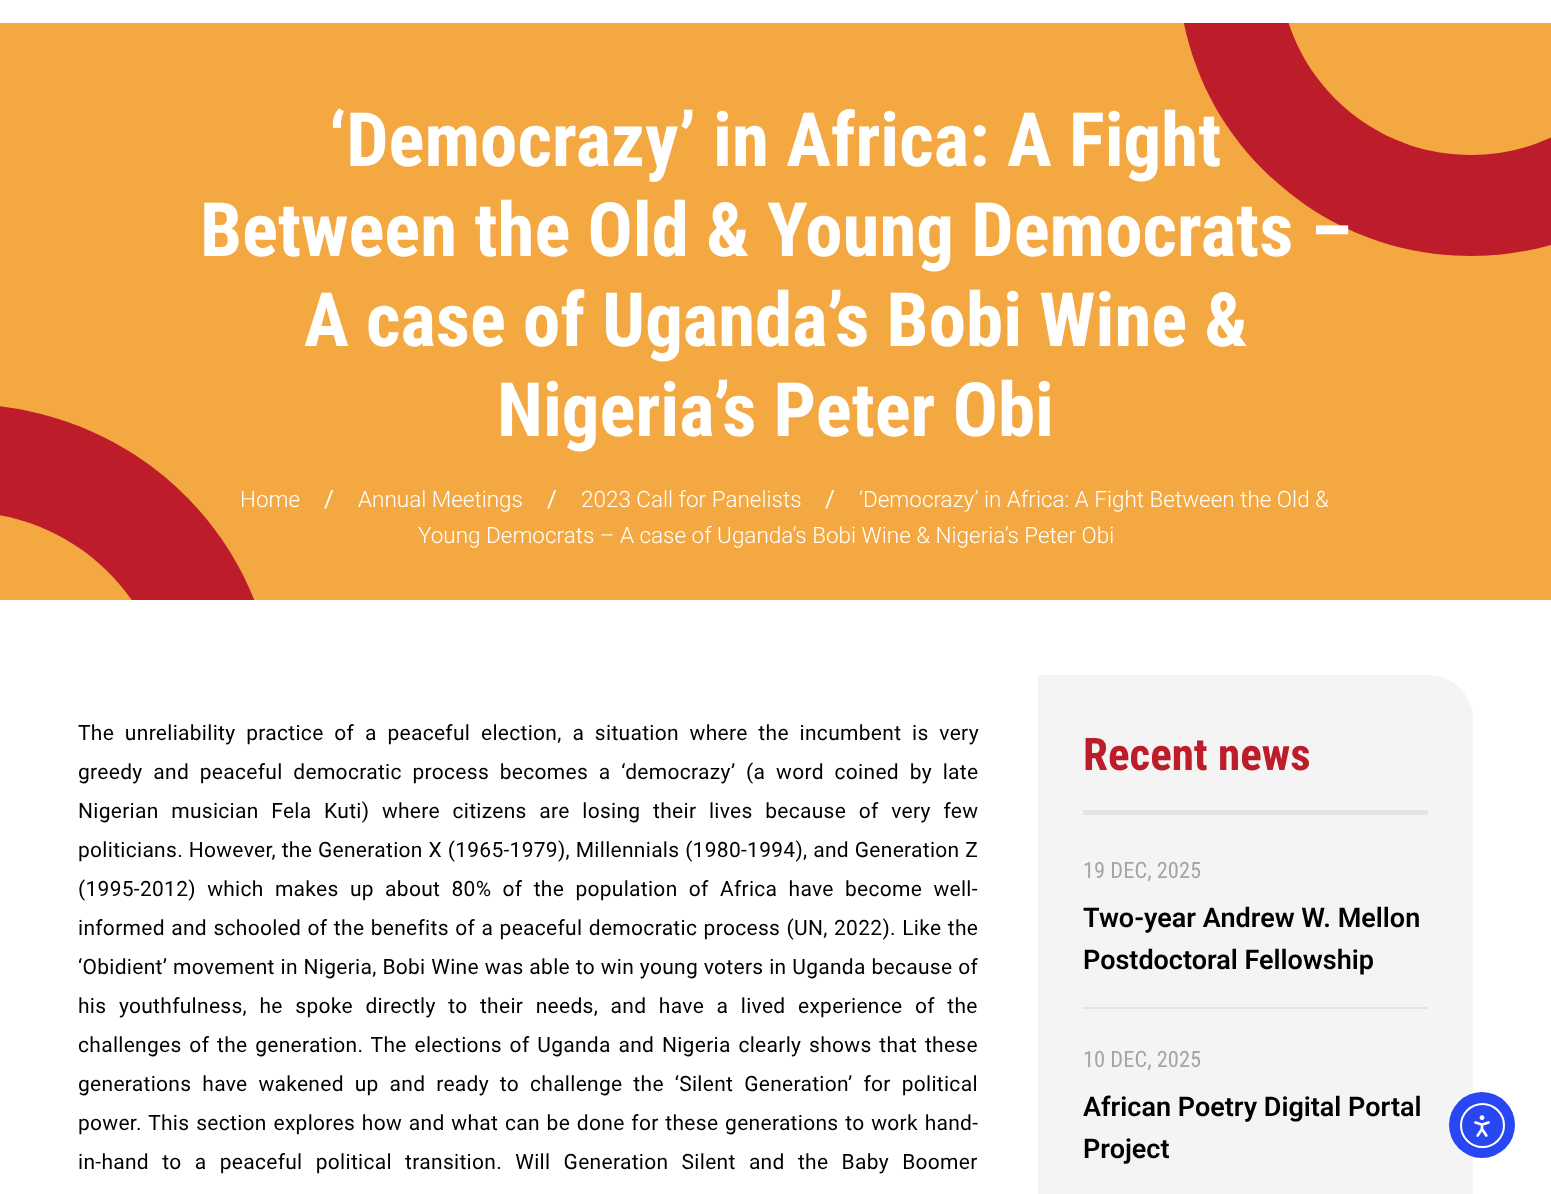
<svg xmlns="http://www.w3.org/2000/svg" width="1551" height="1194">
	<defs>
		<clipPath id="clip1"><rect x="0" y="405" width="255" height="195" /></clipPath>
		<clipPath id="clip2"><rect x="1176" y="23" width="375" height="234" /></clipPath>
	</defs>
	<rect width="100%" height="100%" fill="#FFFFFF" />
	<rect x="0" y="23" width="1551" height="577" fill="#F3A842" />
	<text x="240" y="507" font-family="Roboto" font-size="22.5" font-weight="300" fill="#FFFFFF">Home</text>
	<g clip-path="url(#clip1)">
		<path d="M-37 1032C-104 1032-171 1010-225 970C-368 863-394 656-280 518C-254 487-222 461-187 442C-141 417-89 404-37 404C30 404 97 426 151 466C334 603 314 885 112 994C67 1019 15 1032-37 1032ZM-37 512C-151 512-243 604-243 718C-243 831-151 924-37 924C76 924 169 831 169 718C169 604 76 512-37 512Z" fill="#BD1C2B" />
	</g>
	<g clip-path="url(#clip2)">
		<path d="M1471 256C1408 256 1346 236 1296 198C1124 70 1143-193 1331-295C1374-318 1422-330 1471-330C1534-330 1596-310 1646-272C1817-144 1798 119 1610 221C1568 244 1519 256 1471 256ZM1471-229C1365-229 1279-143 1279-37C1279 69 1365 155 1471 155C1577 155 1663 69 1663-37C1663-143 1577-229 1471-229Z" fill="#BD1C2B" />
	</g>
	<g font-family="Roboto Condensed" font-size="75" font-weight="700" fill="#FFFFFF">
		<text x="329" y="166">‘Democrazy’ in Africa: A Fight</text>
		<text x="200" y="256">Between the Old &amp; Young Democrats –</text>
		<text x="304" y="346">A case of Uganda’s Bobi Wine &amp;</text>
		<text x="497" y="436">Nigeria’s Peter Obi</text>
	</g>
	<text x="324" y="507" font-family="Roboto" font-size="24" fill="#FFFFFF">/</text>
	<text x="358" y="507" font-family="Roboto" font-size="22.5" font-weight="300" fill="#FFFFFF">Annual Meetings</text>
	<text x="547" y="507" font-family="Roboto" font-size="24" fill="#FFFFFF">/</text>
	<text x="581" y="507" font-family="Roboto" font-size="22.5" font-weight="300" fill="#FFFFFF">2023 Call for Panelists</text>
	<text x="825" y="507" font-family="Roboto" font-size="24" fill="#FFFFFF">/</text>
	<g font-family="Roboto" font-size="22.5" font-weight="300" fill="#FFFFFF">
		<text x="859" y="507">‘Democrazy’ in Africa: A Fight Between the Old &amp;</text>
		<text x="418" y="543">Young Democrats – A case of Uganda’s Bobi Wine &amp; Nigeria’s Peter Obi</text>
	</g>
	<g font-family="Roboto" font-size="21" letter-spacing="0.3" fill="#000000">
		<text x="78" y="740" word-spacing="5.25">The unreliability practice of a peaceful election, a situation where the incumbent is very</text>
		<text x="78" y="779" word-spacing="5.25">greedy and peaceful democratic process becomes a ‘democrazy’ (a word coined by late</text>
		<text x="78" y="818" word-spacing="7.1">Nigerian musician Fela Kuti) where citizens are losing their lives because of very few</text>
		<text x="78" y="857" word-spacing="0.25">politicians. However, the Generation X (1965-1979), Millennials (1980-1994), and Generation Z</text>
		<text x="78" y="896" word-spacing="5.75">(1995-2012) which makes up about 80% of the population of Africa have become well-</text>
		<text x="78" y="935" word-spacing="0.9">informed and schooled of the benefits of a peaceful democratic process (UN, 2022). Like the</text>
		<text x="78" y="974" word-spacing="0.25">‘Obidient’ movement in Nigeria, Bobi Wine was able to win young voters in Uganda because of</text>
		<text x="78" y="1013" word-spacing="7">his youthfulness, he spoke directly to their needs, and have a lived experience of the</text>
		<text x="78" y="1052" word-spacing="2.25">challenges of the generation. The elections of Uganda and Nigeria clearly shows that these</text>
		<text x="78" y="1091" word-spacing="5.4">generations have wakened up and ready to challenge the ‘Silent Generation’ for political</text>
		<text x="78" y="1130" word-spacing="1.25">power. This section explores how and what can be done for these generations to work hand-</text>
		<text x="78" y="1169" word-spacing="7.75">in-hand to a peaceful political transition. Will Generation Silent and the Baby Boomer</text>
	</g>
	<path d="M1038 675H1428C1453 675 1473 695 1473 720V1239H1083C1058 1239 1038 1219 1038 1194Z" fill="#F4F4F4" />
	<rect x="1083" y="810" width="345" height="5" fill="#E4E4E4" />
	<text x="1083" y="770" font-family="Roboto Condensed" font-size="45" font-weight="700" fill="#BD1C2B">Recent news</text>
	<rect x="1083" y="1007" width="345" height="2" fill="#E4E4E4" />
	<text x="1083" y="878" font-family="Roboto Condensed" font-size="22.5" fill="#A5A5A5">19 DEC, 2025</text>
	<g font-family="Roboto" font-size="27" font-weight="600" fill="#000000">
		<text x="1083" y="927">Two-year Andrew W. Mellon</text>
		<text x="1083" y="969">Postdoctoral Fellowship</text>
	</g>
	<text x="1083" y="1067" font-family="Roboto Condensed" font-size="22.5" fill="#A5A5A5">10 DEC, 2025</text>
	<g font-family="Roboto" font-size="27" font-weight="600" fill="#000000">
		<text x="1083" y="1116">African Poetry Digital Portal</text>
		<text x="1083" y="1158">Project</text>
	</g>
	<circle cx="1482" cy="1125" r="33" fill="#2847F3" />
	<circle cx="1482.5" cy="1125.5" r="21.5" fill="none" stroke="#FFFFFF" stroke-width="2" />
	<image x="1474" y="1115" width="16" height="22" href="assets/img1.png" />
</svg>
